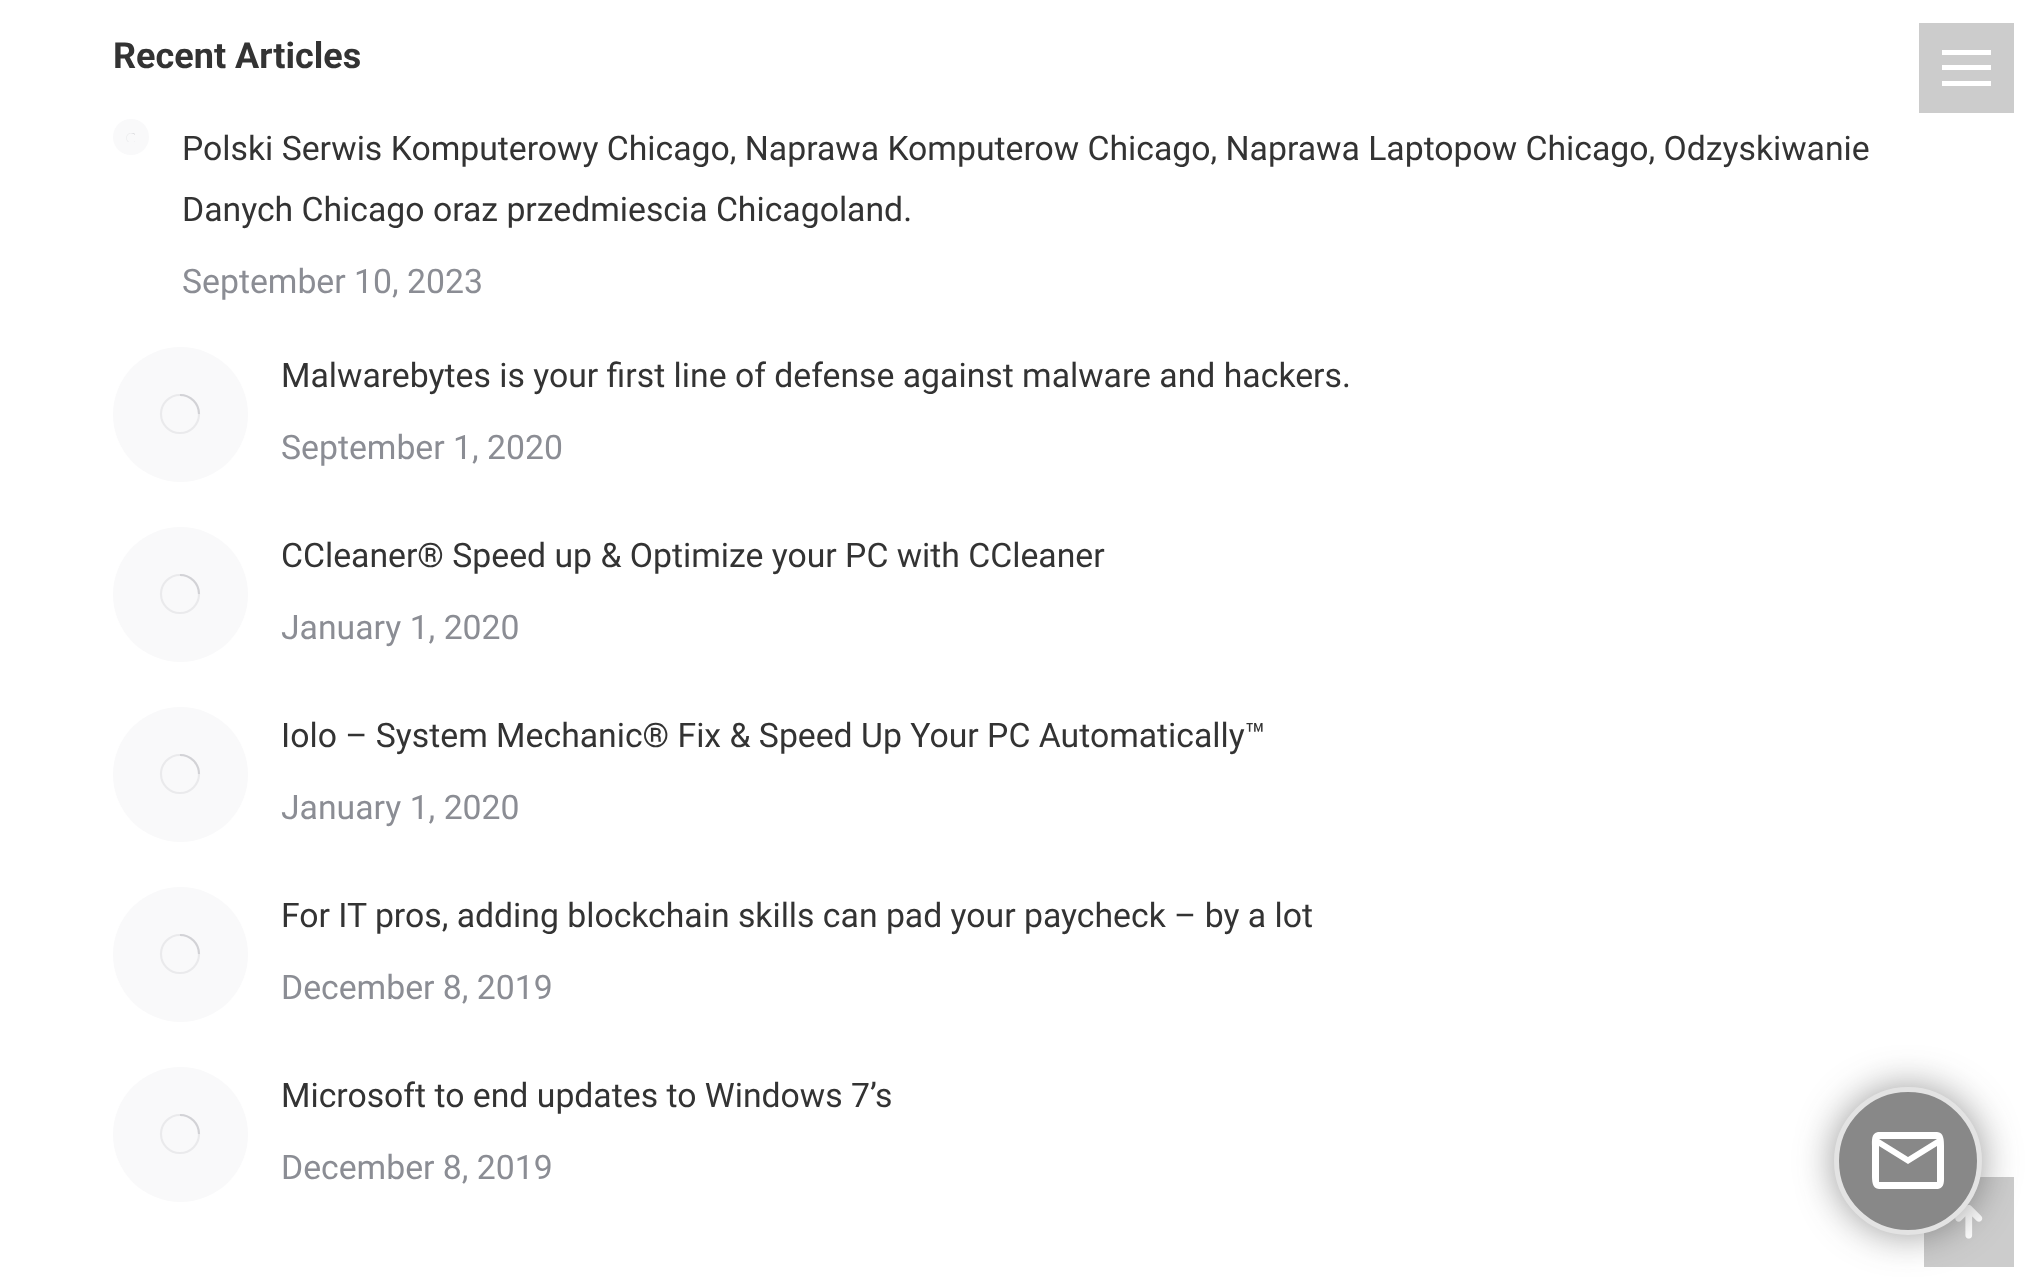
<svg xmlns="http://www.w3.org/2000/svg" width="2036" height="1288">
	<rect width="100%" height="100%" fill="#FFFFFF" />
	<text x="113" y="68" font-family="Roboto" font-size="36" font-weight="700" fill="#333333">Recent Articles</text>
	<circle cx="131" cy="137" r="18" fill="#F9F9FA" />
	<image x="126" y="133" width="9" height="9" href="assets/img1.png" />
	<g font-family="Roboto" font-size="33.75" fill="#333333">
		<text x="182" y="160">Polski Serwis Komputerowy Chicago, Naprawa Komputerow Chicago, Naprawa Laptopow Chicago, Odzyskiwanie</text>
		<text x="182" y="221">Danych Chicago oraz przedmiescia Chicagoland.</text>
	</g>
	<text x="182" y="293" font-family="Roboto" font-size="33.75" fill="#8B8D94">September 10, 2023</text>
	<circle cx="180.5" cy="414.5" r="67.5" fill="#F9F9FA" />
	<circle cx="180" cy="414" r="19" fill="none" stroke="#EAEAEC" stroke-width="2.1" />
	<path d="M199 414C199 403.5 190.5 395 180 395" fill="none" stroke="#8B8D94" stroke-opacity="0.25" stroke-width="2.1" />
	<text x="281" y="387" font-family="Roboto" font-size="33.75" fill="#333333">Malwarebytes is your first line of defense against malware and hackers.</text>
	<text x="281" y="459" font-family="Roboto" font-size="33.75" fill="#8B8D94">September 1, 2020</text>
	<circle cx="180.5" cy="594.5" r="67.5" fill="#F9F9FA" />
	<circle cx="180" cy="594" r="19" fill="none" stroke="#EAEAEC" stroke-width="2.1" />
	<path d="M199 594C199 583.5 190.5 575 180 575" fill="none" stroke="#8B8D94" stroke-opacity="0.25" stroke-width="2.1" />
	<text x="281" y="567" font-family="Roboto" font-size="33.75" fill="#333333">CCleaner® Speed up &amp; Optimize your PC with CCleaner</text>
	<text x="281" y="639" font-family="Roboto" font-size="33.75" fill="#8B8D94">January 1, 2020</text>
	<circle cx="180.5" cy="774.5" r="67.5" fill="#F9F9FA" />
	<circle cx="180" cy="774" r="19" fill="none" stroke="#EAEAEC" stroke-width="2.1" />
	<path d="M199 774C199 763.5 190.5 755 180 755" fill="none" stroke="#8B8D94" stroke-opacity="0.25" stroke-width="2.1" />
	<text x="281" y="747" font-family="Roboto" font-size="33.75" fill="#333333">Iolo – System Mechanic® Fix &amp; Speed Up Your PC Automatically™</text>
	<text x="281" y="819" font-family="Roboto" font-size="33.75" fill="#8B8D94">January 1, 2020</text>
	<circle cx="180.5" cy="954.5" r="67.5" fill="#F9F9FA" />
	<circle cx="180" cy="954" r="19" fill="none" stroke="#EAEAEC" stroke-width="2.1" />
	<path d="M199 954C199 943.5 190.5 935 180 935" fill="none" stroke="#8B8D94" stroke-opacity="0.25" stroke-width="2.1" />
	<text x="281" y="927" font-family="Roboto" font-size="33.75" fill="#333333">For IT pros, adding blockchain skills can pad your paycheck – by a lot</text>
	<text x="281" y="999" font-family="Roboto" font-size="33.75" fill="#8B8D94">December 8, 2019</text>
	<circle cx="180.5" cy="1134.5" r="67.5" fill="#F9F9FA" />
	<circle cx="180" cy="1134" r="19" fill="none" stroke="#EAEAEC" stroke-width="2.1" />
	<path d="M199 1134C199 1123.5 190.5 1115 180 1115" fill="none" stroke="#8B8D94" stroke-opacity="0.25" stroke-width="2.1" />
	<text x="281" y="1107" font-family="Roboto" font-size="33.75" fill="#333333">Microsoft to end updates to Windows 7’s</text>
	<text x="281" y="1179" font-family="Roboto" font-size="33.75" fill="#8B8D94">December 8, 2019</text>
	<rect x="1919" y="23" width="95" height="90" fill="#CCCCCC" />
	<rect x="1942" y="50" width="49" height="5" fill="#FFFFFF" />
	<rect x="1942" y="65" width="49" height="5" fill="#FFFFFF" />
	<rect x="1942" y="81" width="49" height="5" fill="#FFFFFF" />
	<rect x="1924" y="1177" width="90" height="90" fill="#CCCCCC" />
	<image x="1955" y="1205" width="28" height="34" href="assets/img2.png" />
	<rect x="1834" y="1087" width="148" height="148" rx="74" fill="#323232" fill-opacity="0.5" filter="blur(19px)" />
	<circle cx="1908" cy="1161" r="71.5" fill="#888888" stroke="#E3E3E3" stroke-width="5" />
	<path d="M1937 1132C1944 1132 1944 1141 1944 1146V1175C1944 1180 1945 1188 1938 1189H1879C1872 1189 1872 1180 1872 1175V1146C1872 1141 1871 1133 1878 1132ZM1937 1182V1146L1908 1164L1879 1146V1182ZM1908 1157L1937 1139H1879Z" fill="#FFFFFF" />
</svg>
